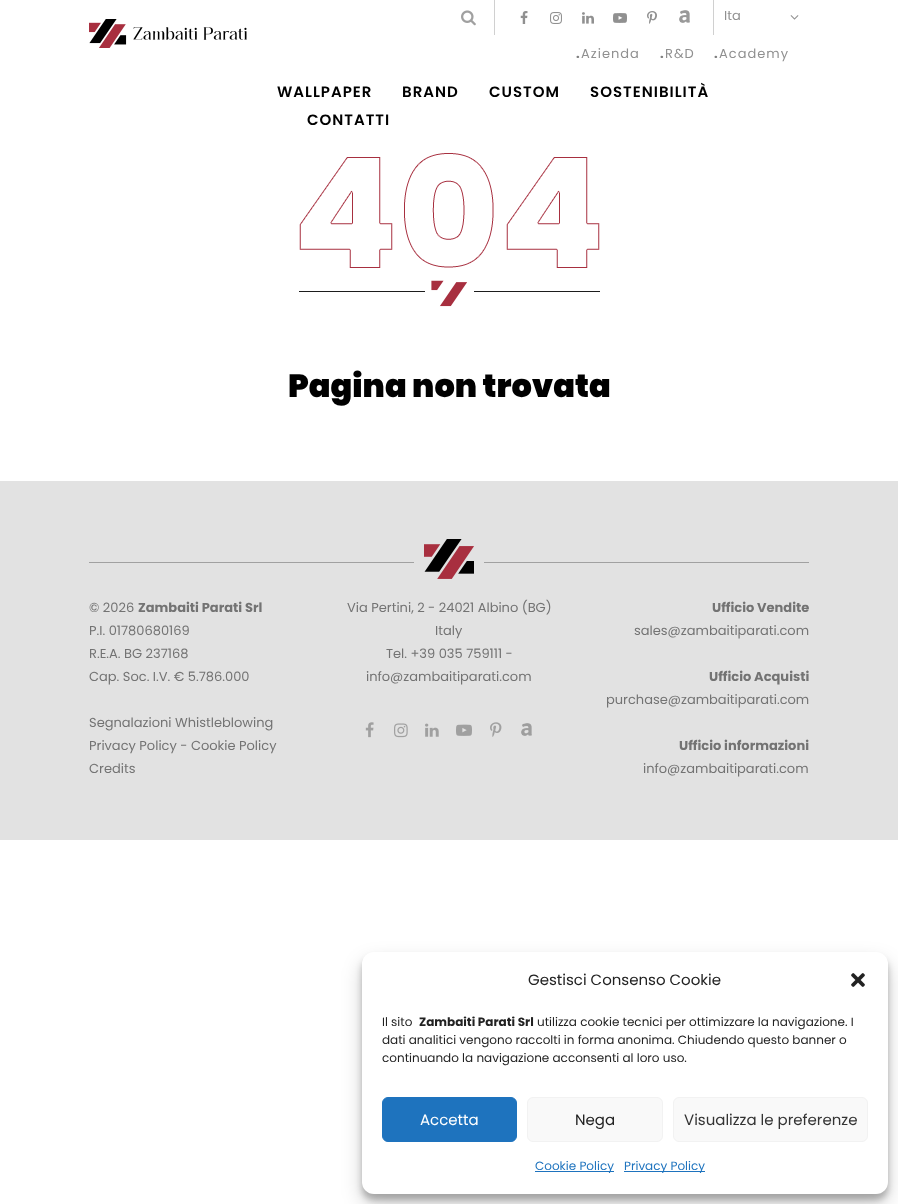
<svg xmlns="http://www.w3.org/2000/svg" width="898" height="1204">
	<rect width="100%" height="100%" fill="#FFFFFF" />
	<image x="89" y="19" width="158" height="29" href="assets/img1.png" />
	<rect x="494" y="0" width="1" height="35" fill="#D0D0D0" />
	<image x="461" y="10" width="15" height="16" href="assets/img2.png" />
	<image x="520" y="11" width="8" height="13" href="assets/img3.png" />
	<image x="550" y="12" width="12" height="12" href="assets/img4.png" />
	<image x="582" y="12" width="12" height="12" href="assets/img5.png" />
	<image x="613" y="13" width="14" height="10" href="assets/img6.png" />
	<image x="647" y="11" width="10" height="13" href="assets/img7.png" />
	<image x="679" y="10" width="11" height="13" href="assets/img8.png" />
	<rect x="713" y="0" width="1" height="35" fill="#D0D0D0" />
	<text x="724" y="20" font-family="Poppins" font-size="13" fill="#909090">Ita</text>
	<image x="790" y="15" width="9" height="5" href="assets/img9.png" />
	<text x="576" y="58" font-family="Poppins" font-size="13" font-weight="700" letter-spacing="1" fill="#808080">.</text>
	<text x="581" y="58" font-family="Poppins" font-size="13" letter-spacing="1" fill="#909090">Azienda</text>
	<text x="660" y="58" font-family="Poppins" font-size="13" font-weight="700" letter-spacing="1" fill="#808080">.</text>
	<text x="665" y="58" font-family="Poppins" font-size="13" letter-spacing="1" fill="#909090">R&amp;D</text>
	<text x="714" y="58" font-family="Poppins" font-size="13" font-weight="700" letter-spacing="1" fill="#808080">.</text>
	<text x="719" y="58" font-family="Poppins" font-size="13" letter-spacing="1" fill="#909090">Academy</text>
	<g font-family="Poppins" font-size="15" font-weight="600" letter-spacing="1" fill="#000000">
		<text x="277" y="97">WALLPAPER</text>
		<text x="402" y="97">BRAND</text>
		<text x="489" y="97">CUSTOM</text>
		<text x="590" y="97">SOSTENIBILITÀ</text>
		<text x="307" y="125">CONTATTI</text>
	</g>
	<image x="299" y="153" width="301" height="154" href="assets/img10.png" />
	<text x="288" y="397" font-family="Poppins" font-size="32" font-weight="900" fill="#000000">Pagina non trovata</text>
	<rect x="0" y="481" width="898" height="359" fill="#E2E2E2" />
	<rect x="89" y="562" width="720" height="1" fill="#A1A1A1" />
	<rect x="414" y="562" width="70" height="1" fill="#E2E2E2" />
	<image x="424" y="539" width="50" height="40" href="assets/img11.png" />
	<text x="89" y="612" font-family="Poppins" font-size="13" fill="#737373">© 2026</text>
	<text x="138" y="612" font-family="Poppins" font-size="13" font-weight="700" fill="#737373">Zambaiti Parati Srl</text>
	<g font-family="Poppins" font-size="13" fill="#737373">
		<text x="89" y="635">P.I. 01780680169</text>
		<text x="89" y="658">R.E.A. BG 237168</text>
		<text x="89" y="681">Cap. Soc. I.V. € 5.786.000</text>
		<text x="89" y="727">Segnalazioni Whistleblowing</text>
		<text x="89" y="750">Privacy Policy - Cookie Policy</text>
		<text x="89" y="773">Credits</text>
		<text x="347" y="612">Via Pertini, 2 - 24021 Albino (BG)</text>
		<text x="435" y="635">Italy</text>
		<text x="386" y="658">Tel. +39 035 759111 -</text>
		<text x="366" y="681">info@zambaitiparati.com</text>
	</g>
	<image x="365" y="722" width="9" height="16" href="assets/img12.png" />
	<image x="394" y="723" width="14" height="15" href="assets/img13.png" />
	<image x="425" y="723" width="14" height="14" href="assets/img14.png" />
	<image x="456" y="724" width="16" height="12" href="assets/img15.png" />
	<image x="490" y="722" width="12" height="15" href="assets/img16.png" />
	<image x="521" y="723" width="11" height="13" href="assets/img17.png" />
	<text x="712" y="612" font-family="Poppins" font-size="13" font-weight="700" fill="#737373">Ufficio Vendite</text>
	<text x="634" y="635" font-family="Poppins" font-size="13" fill="#737373">sales@zambaitiparati.com</text>
	<text x="709" y="681" font-family="Poppins" font-size="13" font-weight="700" fill="#737373">Ufficio Acquisti</text>
	<text x="606" y="704" font-family="Poppins" font-size="13" fill="#737373">purchase@zambaitiparati.com</text>
	<text x="679" y="750" font-family="Poppins" font-size="13" font-weight="700" fill="#737373">Ufficio informazioni</text>
	<text x="643" y="773" font-family="Poppins" font-size="13" fill="#737373">info@zambaitiparati.com</text>
	<rect x="362" y="958" width="526" height="242" rx="12" fill="#000000" fill-opacity="0.23" filter="blur(3px)" />
	<rect x="362" y="962" width="526" height="242" rx="12" fill="#000000" fill-opacity="0.19" filter="blur(10px)" />
	<rect x="362" y="952" width="526" height="242" rx="12" fill="#FFFFFF" />
	<text x="528" y="985" font-family="Poppins" font-size="15" fill="#222222">Gestisci Consenso Cookie</text>
	<image x="851" y="973" width="14" height="14" href="assets/img18.png" />
	<text x="382" y="1026" font-family="Poppins" font-size="12" fill="#222222">Il sito</text>
	<text x="419" y="1026" font-family="Poppins" font-size="12" font-weight="700" fill="#222222">Zambaiti Parati Srl</text>
	<g font-family="Poppins" font-size="12" fill="#222222">
		<text x="537" y="1026">utilizza cookie tecnici per ottimizzare la navigazione. I</text>
		<text x="382" y="1044">dati analitici vengono raccolti in forma anonima. Chiudendo questo banner o</text>
		<text x="382" y="1062">continuando la navigazione acconsenti al loro uso.</text>
	</g>
	<rect x="382.5" y="1097.5" width="134" height="44" rx="5.5" fill="#1E73BE" stroke="#1E73BE" />
	<text x="420" y="1125" font-family="Poppins" font-size="15" fill="#FFFFFF">Accetta</text>
	<rect x="527.5" y="1097.5" width="135" height="44" rx="5.5" fill="#F9F9F9" stroke="#F2F2F2" />
	<text x="575" y="1125" font-family="Poppins" font-size="15" fill="#222222">Nega</text>
	<rect x="673.5" y="1097.5" width="194" height="44" rx="5.5" fill="#F9F9F9" stroke="#F2F2F2" />
	<text x="684" y="1125" font-family="Poppins" font-size="15" fill="#333333">Visualizza le preferenze</text>
	<rect x="535" y="1171" width="79" height="1" fill="#1E73BE" />
	<text x="535" y="1170" font-family="Poppins" font-size="12" fill="#1E73BE">Cookie Policy</text>
	<rect x="624" y="1171" width="81" height="1" fill="#1E73BE" />
	<text x="624" y="1170" font-family="Poppins" font-size="12" fill="#1E73BE">Privacy Policy</text>
</svg>
